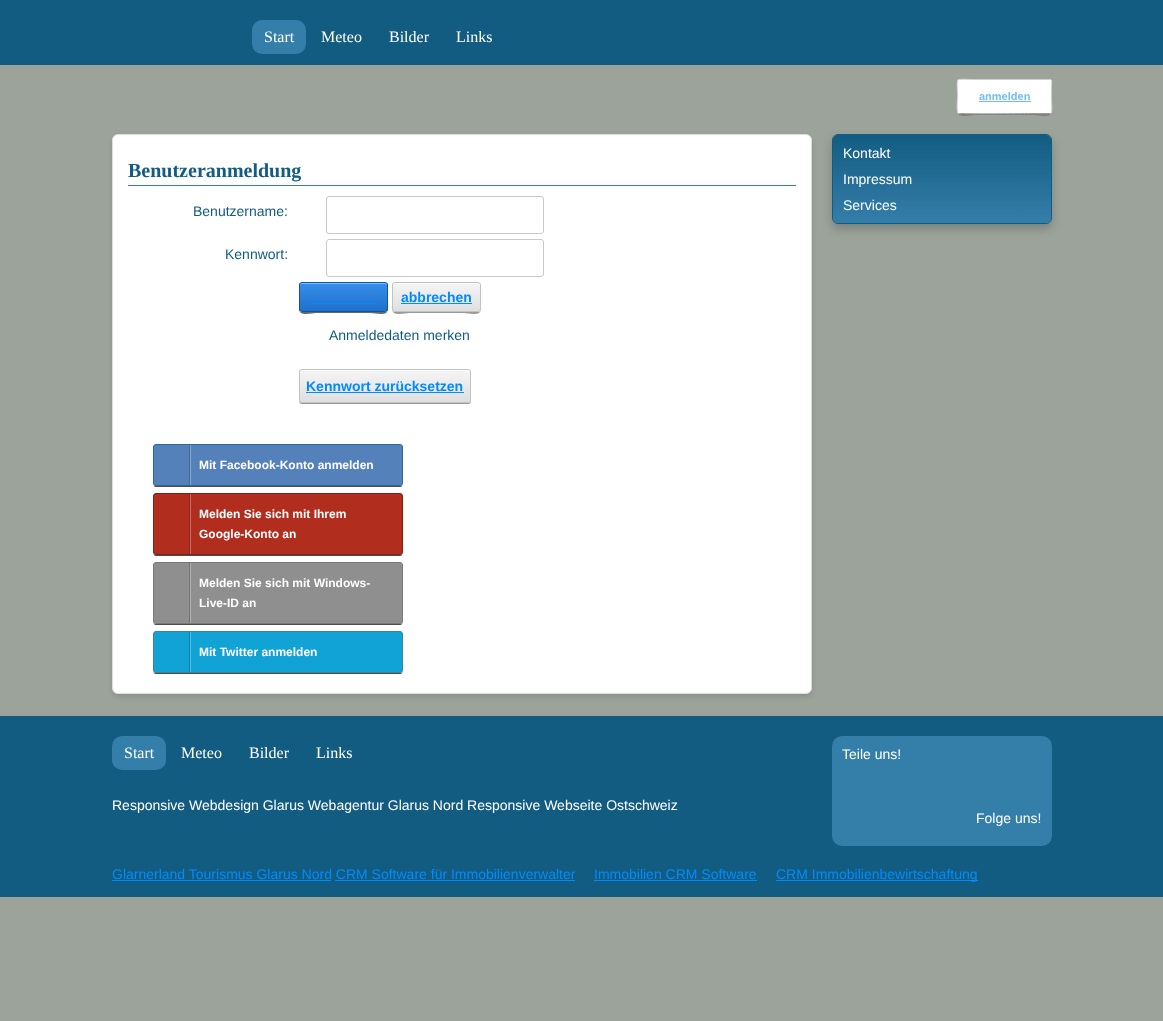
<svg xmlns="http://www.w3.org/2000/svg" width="1163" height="1021">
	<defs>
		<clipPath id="clip1"><rect x="299" y="282" width="89" height="30" rx="3" /></clipPath>
		<linearGradient id="g1" gradientUnits="userSpaceOnUse" x1="344" y1="283" x2="344" y2="311"><stop offset="0" stop-color="#358EEA" /><stop offset="1" stop-color="#2170CD" /></linearGradient>
		<clipPath id="clip2"><rect x="392" y="282" width="89" height="30" rx="3" /></clipPath>
		<linearGradient id="g2" gradientUnits="userSpaceOnUse" x1="437" y1="283" x2="437" y2="311"><stop offset="0" stop-color="#F5F5F5" /><stop offset="1" stop-color="#DFDFDF" /></linearGradient>
		<clipPath id="clip3"><rect x="299" y="369" width="172" height="34" rx="3" /></clipPath>
		<linearGradient id="g3" gradientUnits="userSpaceOnUse" x1="385" y1="370" x2="385" y2="402"><stop offset="0" stop-color="#F5F5F5" /><stop offset="1" stop-color="#DFDFDF" /></linearGradient>
		<linearGradient id="g4" gradientUnits="userSpaceOnUse" x1="942" y1="135" x2="942" y2="223"><stop offset="0" stop-color="#135C81" /><stop offset="1" stop-color="#347EAA" /></linearGradient>
	</defs>
	<rect width="100%" height="100%" fill="#9BA39B" />
	<rect x="0" y="0" width="1163" height="65" fill="#135C81" />
	<rect x="252" y="20" width="54" height="34" rx="10" fill="#347EAA" />
	<g font-family="Liberation Serif" font-size="16" fill="#FFFFFF">
		<text x="264" y="42">Start</text>
		<text x="321" y="42">Meteo</text>
		<text x="389" y="42">Bilder</text>
		<text x="456" y="42">Links</text>
	</g>
	<path d="M957 111C957 119 972 115 975 115H1034C1037 115 1052 119 1052 111C1052 113 1051 114 1049 114H960C958 114 957 113 957 111Z" fill="#7C827C" />
	<rect x="957" y="79" width="95" height="35" rx="3" fill="#FFFFFF" />
	<path d="M1051 113L1049 113.5H1034C1026.5 113.5 960.5 114.5 958.5 113H958" fill="none" stroke="#999999" />
	<path d="M958 113C956.5 111 957.5 99.5 957.5 96.5C957.5 76 953.5 79.5 975 79.5H1049C1052.5 79.5 1051.5 85 1051.5 87V101.5C1051.5 103.5 1052.5 111 1051 113" fill="none" stroke="#CFCFCF" />
	<rect x="958" y="80" width="1" height="33" fill="#FCFCFC" />
	<rect x="959" y="80" width="92" height="33" fill="#FFFFFF" />
	<text x="979" y="100" font-family="Liberation Sans" font-size="11" font-weight="700" fill="#70BDF5">anmelden</text>
	<rect x="979" y="101" width="52" height="1" fill="#70BDF5" />
	<rect x="112" y="137" width="700" height="560" rx="6" fill="#000000" fill-opacity="0.1" filter="blur(2.5px)" />
	<rect x="112.5" y="134.5" width="699" height="559" rx="5.5" fill="#FFFFFF" stroke="#DDDDDD" />
	<rect x="128" y="185" width="668" height="1" fill="#347EAA" />
	<text x="128" y="177" font-family="Liberation Serif" font-size="20" font-weight="700" fill="#135C81">Benutzeranmeldung</text>
	<text x="193" y="216" font-family="Liberation Sans" font-size="14" fill="#135C81">Benutzername:</text>
	<rect x="326.5" y="196.5" width="217" height="37" rx="2.5" fill="none" stroke="#C9C9C9" />
	<text x="225" y="259" font-family="Liberation Sans" font-size="14" fill="#135C81">Kennwort:</text>
	<rect x="326.5" y="239.5" width="217" height="37" rx="2.5" fill="none" stroke="#C9C9C9" />
	<path d="M299 309C299 317 312 313 316 313H371C375 313 388 317 388 309C388 311 387 312 385 312H302C300 312 299 311 299 309Z" fill="#666666" />
	<g clip-path="url(#clip1)">
		<rect x="299" y="283" width="89" height="28" fill="url(#g1)" />
	</g>
	<path d="M302 284H385C386 284 387 285 387 286C387 279 374 283 371 283H316C313 283 300 279 300 286C300 285 301 284 302 284Z" fill="#FFFFFF" fill-opacity="0.4" />
	<rect x="299.5" y="282.5" width="88" height="29" rx="2.5" fill="none" stroke="#0D569E" />
	<rect x="311" y="303" width="66" height="1" fill="#028BFF" />
	<path d="M392 309C392 317 405 313 409 313H464C468 313 481 317 481 309C481 311 480 312 478 312H395C393 312 392 311 392 309Z" fill="#999999" />
	<g clip-path="url(#clip2)">
		<rect x="392" y="283" width="89" height="28" fill="url(#g2)" />
	</g>
	<path d="M395 284H478C479 284 480 285 480 286C480 279 467 283 464 283H409C406 283 393 279 393 286C393 285 394 284 395 284Z" fill="#FFFFFF" />
	<rect x="392.5" y="282.5" width="88" height="29" rx="2.5" fill="none" stroke="#C2C2C2" />
	<text x="401" y="302" font-family="Liberation Sans" font-size="14" font-weight="700" fill="#028BFF">abbrechen</text>
	<rect x="401" y="303" width="71" height="1" fill="#028BFF" />
	<text x="329" y="340" font-family="Liberation Sans" font-size="14" fill="#135C81">Anmeldedaten merken</text>
	<path d="M299 400V401C299 403 300 404 302 404H468C470 404 471 403 471 401V400C471 402 470 403 468 403H302C300 403 299 402 299 400Z" fill="#999999" />
	<g clip-path="url(#clip3)">
		<rect x="299" y="370" width="172" height="32" fill="url(#g3)" />
	</g>
	<path d="M302 371H468C469 371 470 372 470 373C470 372 470 370 468 370H302C300 370 300 372 300 373C300 372 301 371 302 371Z" fill="#FFFFFF" />
	<rect x="299.5" y="369.5" width="171" height="33" rx="2.5" fill="none" stroke="#C2C2C2" />
	<text x="306" y="391" font-family="Liberation Sans" font-size="14" font-weight="700" fill="#028BFF">Kennwort zurücksetzen</text>
	<rect x="306" y="392" width="158" height="1" fill="#028BFF" />
	<path d="M153 483C153 485 154 487 156 487H400C402 487 403 485 403 483C403 485 402 486 400 486H156C154 486 153 485 153 483Z" fill="#4D4D4D" />
	<rect x="153.5" y="444.5" width="249" height="41" rx="2.5" fill="#5581BB" stroke="#286C93" />
	<rect x="190" y="445" width="1" height="40" fill="#88A7CF" />
	<rect x="189" y="445" width="1" height="40" fill="#446796" />
	<text x="199" y="469" font-family="Liberation Sans" font-size="12" font-weight="700" fill="#FFFFFF">Mit Facebook-Konto anmelden</text>
	<path d="M153 552C153 554 154 556 156 556H400C402 556 403 554 403 552C403 554 402 555 400 555H156C154 555 153 554 153 552Z" fill="#4D4D4D" />
	<rect x="153.5" y="493.5" width="249" height="61" rx="2.5" fill="#B12E1E" stroke="#821E16" />
	<rect x="190" y="494" width="1" height="60" fill="#C86D62" />
	<rect x="189" y="494" width="1" height="60" fill="#8E2518" />
	<g font-family="Liberation Sans" font-size="12" font-weight="700" fill="#FFFFFF">
		<text x="199" y="518">Melden Sie sich mit Ihrem</text>
		<text x="199" y="538">Google-Konto an</text>
	</g>
	<path d="M153 621C153 623 154 625 156 625H400C402 625 403 623 403 621C403 623 402 624 400 624H156C154 624 153 623 153 621Z" fill="#4D4D4D" />
	<rect x="153.5" y="562.5" width="249" height="61" rx="2.5" fill="#8F8F8F" stroke="#7A7A7A" />
	<rect x="190" y="563" width="1" height="60" fill="#B1B1B1" />
	<rect x="189" y="563" width="1" height="60" fill="#727272" />
	<g font-family="Liberation Sans" font-size="12" font-weight="700" fill="#FFFFFF">
		<text x="199" y="587">Melden Sie sich mit Windows-</text>
		<text x="199" y="607">Live-ID an</text>
	</g>
	<path d="M153 670C153 672 154 674 156 674H400C402 674 403 672 403 670C403 672 402 673 400 673H156C154 673 153 672 153 670Z" fill="#4D4D4D" />
	<rect x="153.5" y="631.5" width="249" height="41" rx="2.5" fill="#11A2D6" stroke="#3D82A0" />
	<rect x="190" y="632" width="1" height="40" fill="#58BEE2" />
	<rect x="189" y="632" width="1" height="40" fill="#0E82AB" />
	<text x="199" y="656" font-family="Liberation Sans" font-size="12" font-weight="700" fill="#FFFFFF">Mit Twitter anmelden</text>
	<rect x="832" y="139" width="220" height="90" rx="6" fill="#000000" fill-opacity="0.2" filter="blur(5px)" />
	<rect x="833" y="135" width="218" height="88" rx="5" fill="url(#g4)" />
	<rect x="832.5" y="134.5" width="219" height="89" rx="5.5" fill="none" stroke="#135C81" />
	<g font-family="Liberation Sans" font-size="14" fill="#FFFFFF">
		<text x="843" y="158">Kontakt</text>
		<text x="843" y="184">Impressum</text>
		<text x="843" y="210">Services</text>
	</g>
	<rect x="0" y="716" width="1163" height="181" fill="#135C81" />
	<rect x="112" y="736" width="54" height="34" rx="10" fill="#347EAA" />
	<g font-family="Liberation Serif" font-size="16" fill="#FFFFFF">
		<text x="124" y="758">Start</text>
		<text x="181" y="758">Meteo</text>
		<text x="249" y="758">Bilder</text>
		<text x="316" y="758">Links</text>
	</g>
	<text x="112" y="810" font-family="Liberation Sans" font-size="14" fill="#FFFFFF">Responsive Webdesign Glarus Webagentur Glarus Nord Responsive Webseite Ostschweiz</text>
	<rect x="832" y="736" width="220" height="110" rx="10" fill="#347EAA" />
	<g font-family="Liberation Sans" font-size="14" fill="#FFFFFF">
		<text x="842" y="759">Teile uns!</text>
		<text x="976" y="823">Folge uns!</text>
	</g>
	<text x="112" y="879" font-family="Liberation Sans" font-size="14" fill="#028BFF">Glarnerland Tourismus Glarus Nord CRM Software für Immobilienverwalter</text>
	<rect x="112" y="880" width="219" height="1" fill="#028BFF" />
	<text x="594" y="879" font-family="Liberation Sans" font-size="14" fill="#028BFF">Immobilien CRM Software</text>
	<rect x="594" y="880" width="163" height="1" fill="#028BFF" />
	<rect x="776" y="880" width="202" height="1" fill="#028BFF" />
	<text x="776" y="879" font-family="Liberation Sans" font-size="14" fill="#028BFF">CRM Immobilienbewirtschaftung</text>
	<rect x="335" y="880" width="240" height="1" fill="#028BFF" />
</svg>
